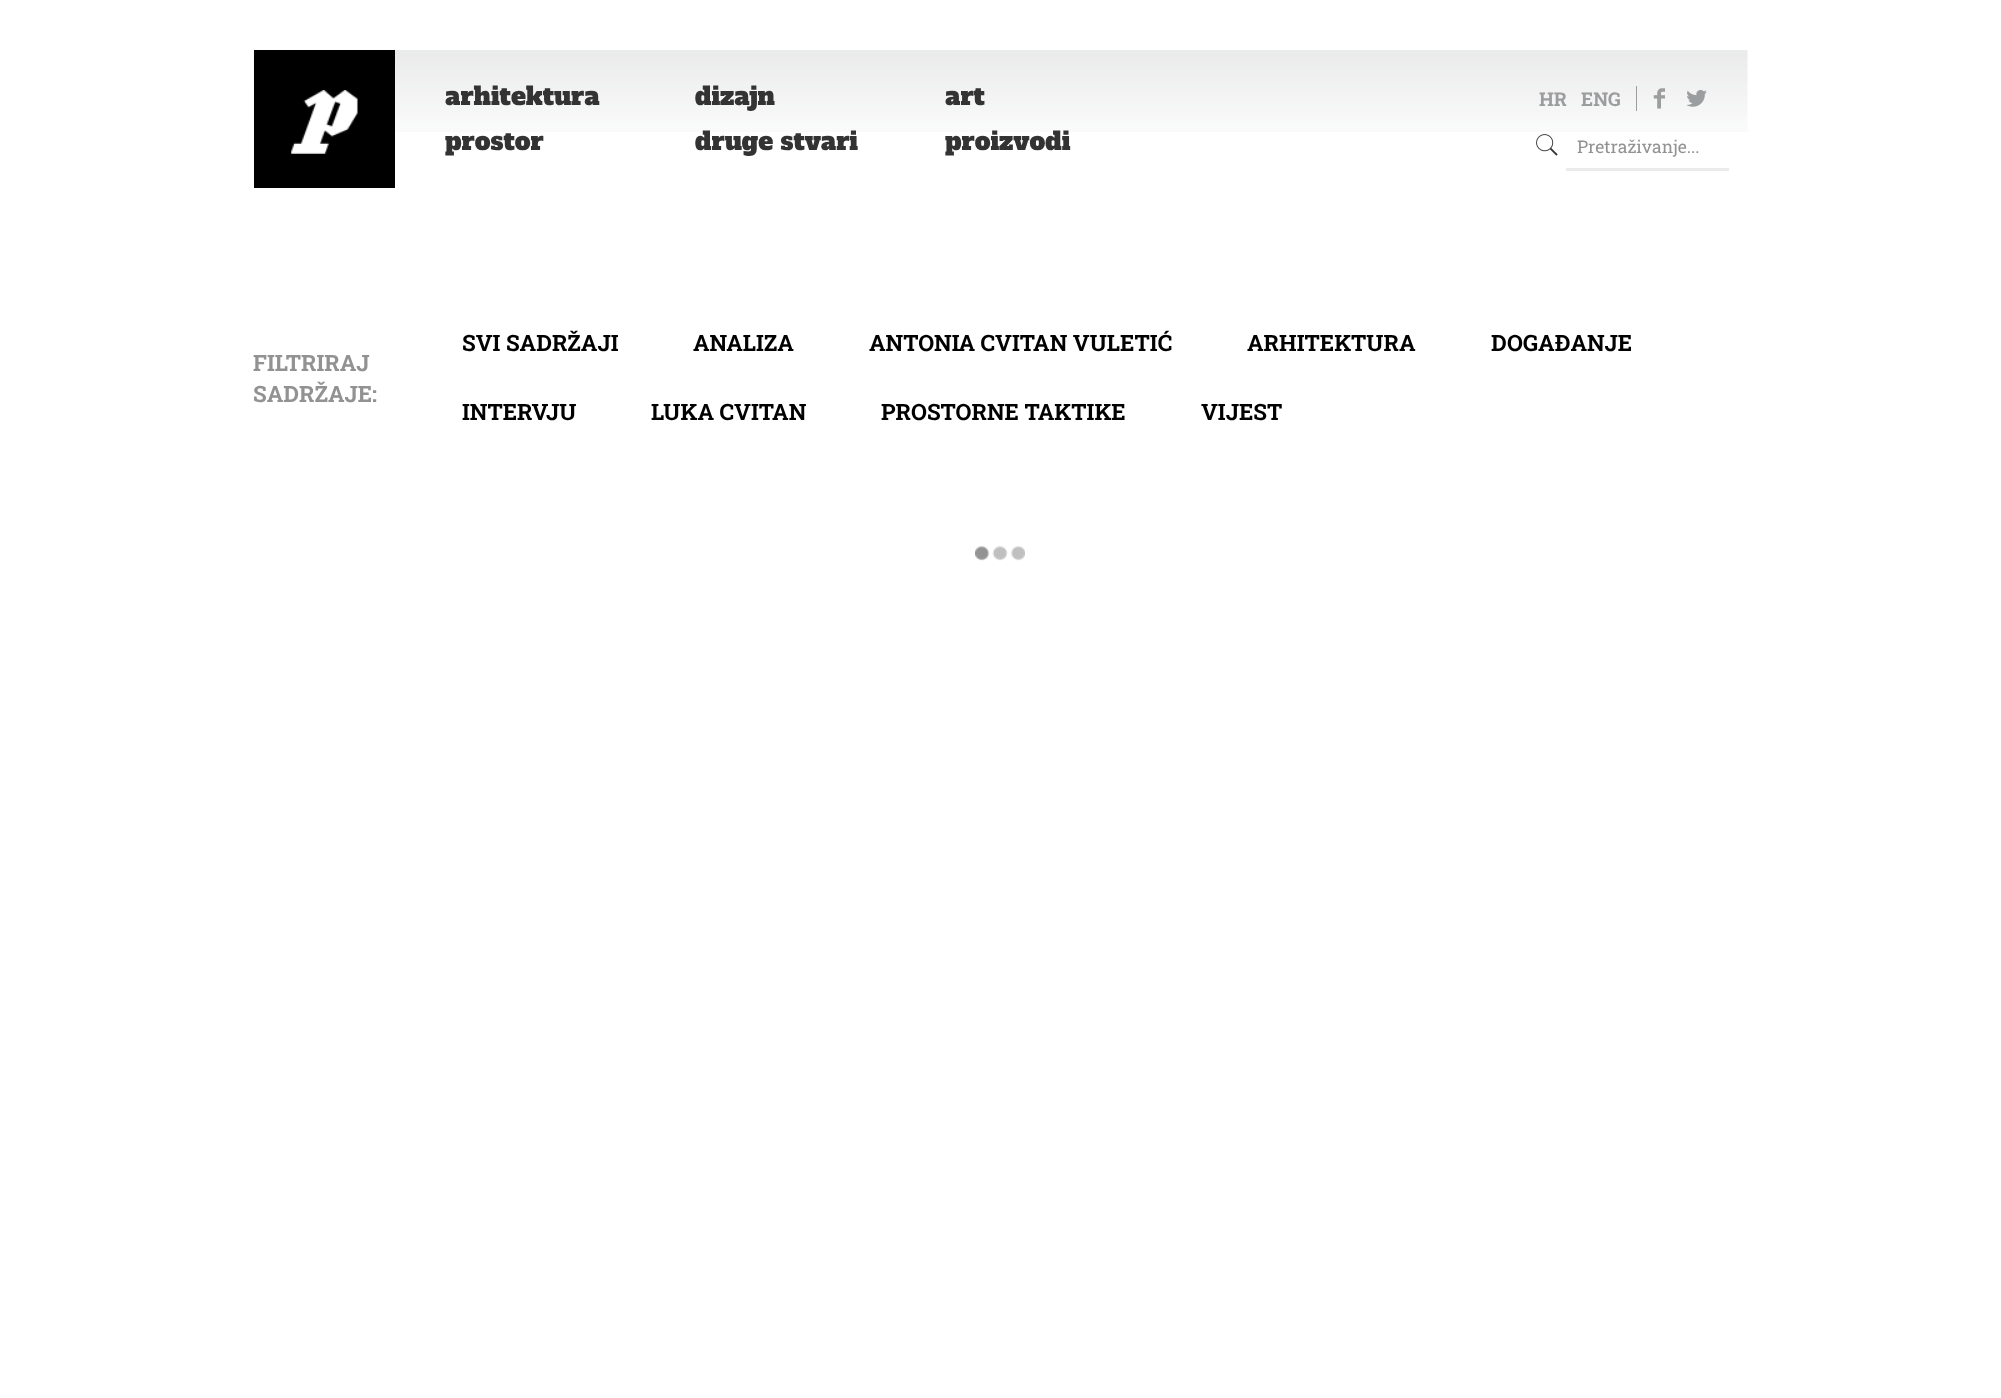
<svg xmlns="http://www.w3.org/2000/svg" width="2001" height="1398">
	<rect width="100%" height="100%" fill="#FFFFFF" />
	<image x="253" y="50" width="1495" height="82" href="assets/img1.png" />
	<rect x="254" y="50" width="141" height="138" fill="#000000" />
	<image x="291" y="90" width="67" height="64" href="assets/img2.png" />
	<g font-family="Alfa Slab One" font-size="25" fill="#333333">
		<text x="445" y="105">arhitektura</text>
		<text x="695" y="105">dizajn</text>
		<text x="945" y="105">art</text>
		<text x="445" y="150">prostor</text>
		<text x="695" y="150">druge stvari</text>
		<text x="945" y="150">proizvodi</text>
	</g>
	<g font-family="Roboto Slab" font-size="19" font-weight="700" fill="#9B9D9E">
		<text x="1539" y="106">HR</text>
		<text x="1581" y="106">ENG</text>
	</g>
	<rect x="1636" y="86" width="1" height="25" fill="#9B9D9E" />
	<image x="1653" y="88" width="12" height="21" href="assets/img3.png" />
	<image x="1686" y="90" width="21" height="17" href="assets/img4.png" />
	<image x="1536" y="134" width="22" height="22" href="assets/img5.png" />
	<rect x="1566" y="168" width="163" height="3" fill="#EBEBEB" />
	<text x="1577" y="153" font-family="Roboto Slab" font-size="17.5" fill="#929292">Pretraživanje...</text>
	<g font-family="Roboto Slab" font-size="22.5" font-weight="700" fill="#929292">
		<text x="253" y="371">FILTRIRAJ</text>
		<text x="253" y="402">SADRŽAJE:</text>
	</g>
	<g font-family="Roboto Slab" font-size="22.5" font-weight="700" fill="#000000">
		<text x="462" y="351">SVI SADRŽAJI</text>
		<text x="693" y="351">ANALIZA</text>
		<text x="869" y="351">ANTONIA CVITAN VULETIĆ</text>
		<text x="1247" y="351">ARHITEKTURA</text>
		<text x="1491" y="351">DOGAĐANJE</text>
		<text x="462" y="420">INTERVJU</text>
		<text x="651" y="420">LUKA CVITAN</text>
		<text x="881" y="420">PROSTORNE TAKTIKE</text>
		<text x="1201" y="420">VIJEST</text>
	</g>
	<image x="975" y="546" width="50" height="15" href="assets/img6.png" />
</svg>
